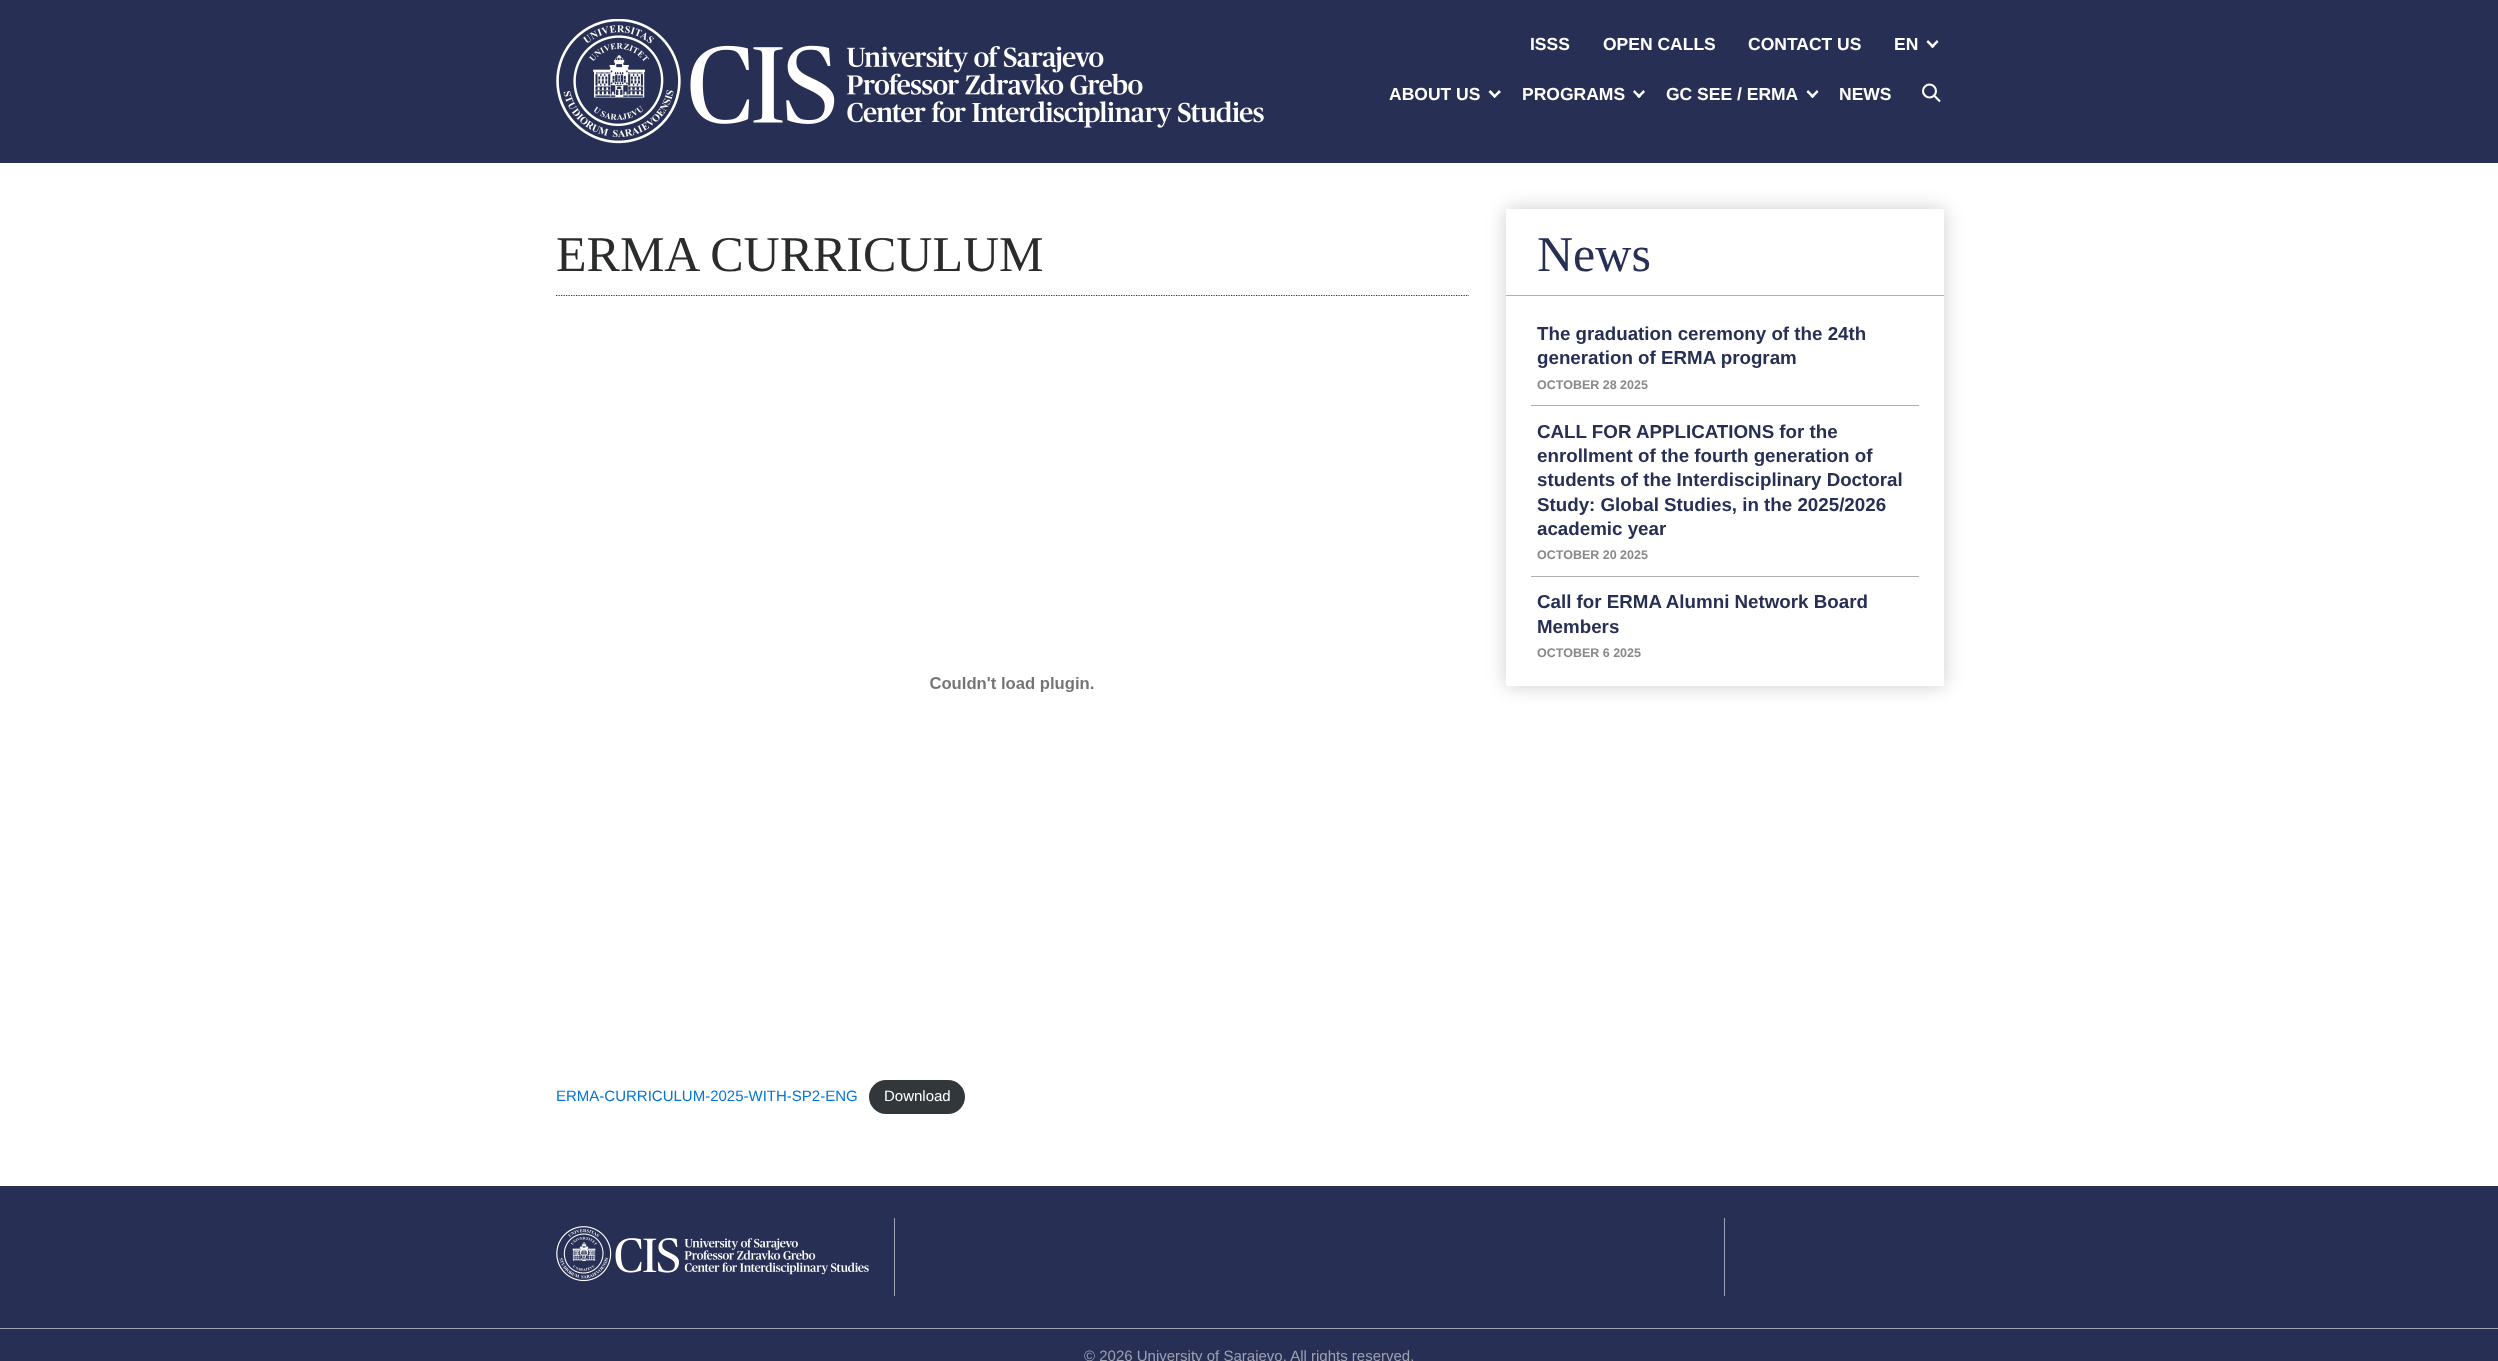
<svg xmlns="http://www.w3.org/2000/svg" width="2498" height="1361">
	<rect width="100%" height="100%" fill="#FFFFFF" />
	<rect x="0" y="0" width="2498" height="163" fill="#272F54" />
	<image x="556" y="19" width="708" height="125" href="assets/img1.png" />
	<g font-family="Arimo" font-size="17.5" font-weight="700" fill="#FFFFFF">
		<text x="1530" y="50">ISSS</text>
		<text x="1603" y="50">OPEN CALLS</text>
		<text x="1748" y="50">CONTACT US</text>
		<text x="1894" y="50">EN</text>
	</g>
	<path d="M1937 40L1938.5 42L1932.5 48L1930.5 46.5Z" fill="#FFFFFF" />
	<path d="M1928 40L1934.5 46.5L1932.5 48L1926.5 42Z" fill="#FFFFFF" />
	<text x="1389" y="100" font-family="Arimo" font-size="17.5" font-weight="700" fill="#FFFFFF">ABOUT US</text>
	<path d="M1499 90L1501 92L1494.5 98L1493 96.5Z" fill="#FFFFFF" />
	<path d="M1490.5 90L1496.5 96.5L1494.5 98L1488.5 92Z" fill="#FFFFFF" />
	<text x="1522" y="100" font-family="Arimo" font-size="17.5" font-weight="700" fill="#FFFFFF">PROGRAMS</text>
	<path d="M1643.5 90L1645 92L1639 98L1637 96.5Z" fill="#FFFFFF" />
	<path d="M1634.5 90L1641 96.5L1639 98L1633 92Z" fill="#FFFFFF" />
	<text x="1666" y="100" font-family="Arimo" font-size="17.5" font-weight="700" fill="#FFFFFF">GC SEE / ERMA</text>
	<path d="M1817 90L1818.5 92L1812.5 98L1810.5 96.5Z" fill="#FFFFFF" />
	<path d="M1808 90L1814.5 96.5L1812.5 98L1806.5 92Z" fill="#FFFFFF" />
	<text x="1839" y="100" font-family="Arimo" font-size="17.5" font-weight="700" fill="#FFFFFF">NEWS</text>
	<circle cx="1929.5" cy="91" r="6.5" fill="none" stroke="#FFFFFF" stroke-width="2.1" />
	<path d="M1934.5 96L1940 101.5" fill="none" stroke="#FFFFFF" stroke-width="2.1" />
	<path d="M556 295.5H1469" fill="none" stroke="#272F54" stroke-width="1.2" stroke-dasharray="1.25 1.25" />
	<text x="556" y="271" font-family="Tinos" font-size="50" fill="#292B2C">ERMA CURRICULUM</text>
	<image x="930" y="677" width="164" height="15" href="assets/img2.png" />
	<text x="556" y="1101" font-family="Arimo" font-size="15" fill="#0275D8">ERMA-CURRICULUM-2025-WITH-SP2-ENG</text>
	<rect x="869" y="1080" width="96" height="34" rx="17" fill="#32373C" />
	<text x="884" y="1101" font-family="Arimo" font-size="15" fill="#FFFFFF">Download</text>
	<rect x="1506" y="209" width="438" height="477" fill="#000000" fill-opacity="0.2" filter="blur(9.5px)" />
	<rect x="1506" y="209" width="438" height="477" fill="#FFFFFF" />
	<rect x="1506" y="295" width="438" height="1" fill="#B0B0B0" />
	<text x="1537" y="271" font-family="Tinos" font-size="50" fill="#272F54">News</text>
	<rect x="1531" y="405" width="388" height="1" fill="#B0B0B0" />
	<g font-family="Arimo" font-size="18.75" font-weight="700" fill="#272F54">
		<text x="1537" y="340">The graduation ceremony of the 24th</text>
		<text x="1537" y="364">generation of ERMA program</text>
	</g>
	<text x="1537" y="389" font-family="Arimo" font-size="12.5" font-weight="700" fill="#888888">OCTOBER 28 2025</text>
	<rect x="1531" y="576" width="388" height="1" fill="#B0B0B0" />
	<g font-family="Arimo" font-size="18.75" font-weight="700" fill="#272F54">
		<text x="1537" y="438">CALL FOR APPLICATIONS for the</text>
		<text x="1537" y="462">enrollment of the fourth generation of</text>
		<text x="1537" y="486">students of the Interdisciplinary Doctoral</text>
		<text x="1537" y="511">Study: Global Studies, in the 2025/2026</text>
		<text x="1537" y="535">academic year</text>
	</g>
	<text x="1537" y="559" font-family="Arimo" font-size="12.5" font-weight="700" fill="#888888">OCTOBER 20 2025</text>
	<g font-family="Arimo" font-size="18.75" font-weight="700" fill="#272F54">
		<text x="1537" y="608">Call for ERMA Alumni Network Board</text>
		<text x="1537" y="633">Members</text>
	</g>
	<text x="1537" y="657" font-family="Arimo" font-size="12.5" font-weight="700" fill="#888888">OCTOBER 6 2025</text>
	<rect x="0" y="1186" width="2498" height="175" fill="#272F54" />
	<rect x="0" y="1328" width="2498" height="1" fill="#9DA1B2" />
	<image x="556" y="1226" width="313" height="56" href="assets/img3.png" />
	<rect x="1724" y="1218" width="1" height="78" fill="#9DA1B2" />
	<rect x="894" y="1218" width="1" height="78" fill="#9DA1B2" />
	<text x="1084" y="1361" font-family="Arimo" font-size="15" fill="#9DA1B2">© 2026 University of Sarajevo. All rights reserved.</text>
</svg>
